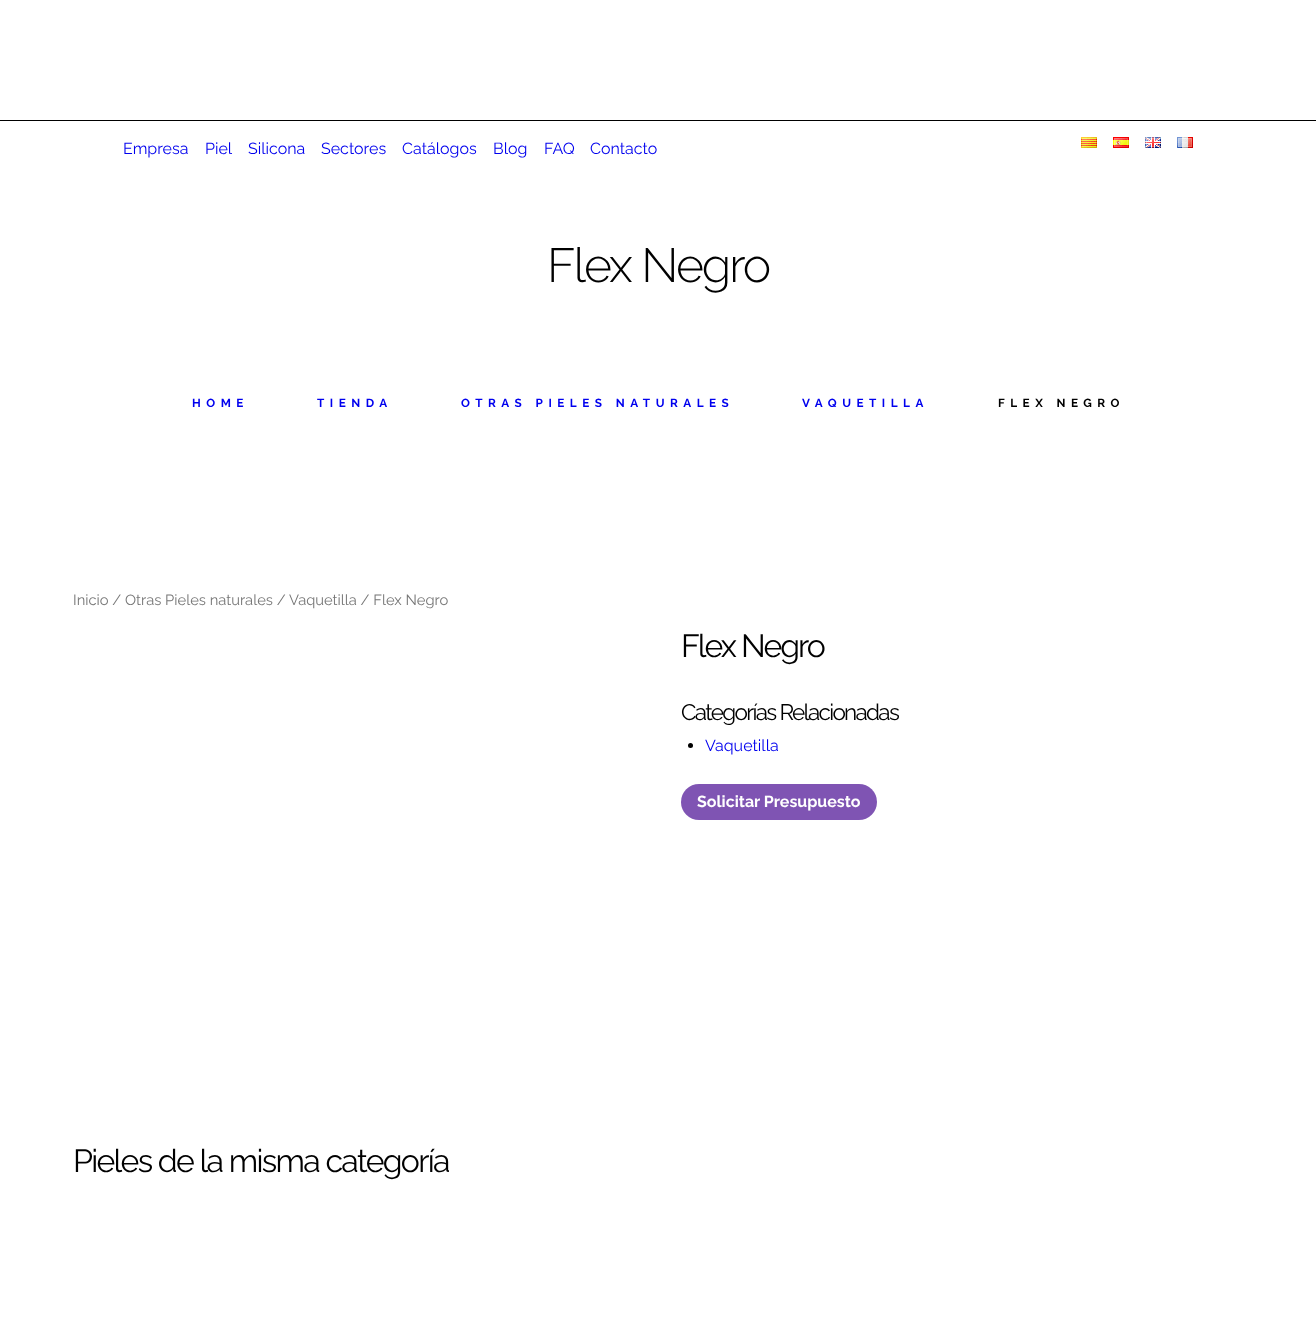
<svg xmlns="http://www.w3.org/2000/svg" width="1316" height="1330">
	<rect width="100%" height="100%" fill="#FFFFFF" />
	<rect x="0" y="120" width="1316" height="1" fill="#000000" />
	<g font-family="Raleway" font-size="16" fill="#0000EE">
		<text x="123" y="154">Empresa</text>
		<text x="205" y="154">Piel</text>
		<text x="248" y="154">Silicona</text>
		<text x="321" y="154">Sectores</text>
		<text x="402" y="154">Catálogos</text>
		<text x="493" y="154">Blog</text>
		<text x="544" y="154">FAQ</text>
		<text x="590" y="154">Contacto</text>
	</g>
	<image x="1081" y="137" width="16" height="11" href="assets/img1.png" />
	<image x="1113" y="137" width="16" height="11" href="assets/img2.png" />
	<image x="1145" y="137" width="16" height="11" href="assets/img3.png" />
	<image x="1177" y="137" width="16" height="11" href="assets/img4.png" />
	<text x="547" y="282" font-family="Raleway" font-size="48" font-weight="300" letter-spacing="-2" fill="#000000">Flex Negro</text>
	<g font-family="Raleway" font-size="11.75" font-weight="700" letter-spacing="5.5" fill="#0000EE">
		<text x="192" y="407">HOME</text>
		<text x="317" y="407">TIENDA</text>
		<text x="461" y="407">OTRAS PIELES NATURALES</text>
		<text x="802" y="407">VAQUETILLA</text>
	</g>
	<text x="998" y="407" font-family="Raleway" font-size="11.75" font-weight="700" letter-spacing="5.5" fill="#000000">FLEX NEGRO</text>
	<text x="73" y="605" font-family="Raleway" font-size="14.75" fill="#767676">Inicio / Otras Pieles naturales / Vaquetilla / Flex Negro</text>
	<text x="681" y="657" font-family="Raleway" font-size="32" letter-spacing="-2" fill="#000000">Flex Negro</text>
	<text x="681" y="720" font-family="Raleway" font-size="22.5" letter-spacing="-1.7" fill="#000000">Categorías Relacionadas</text>
	<circle cx="690.5" cy="745.5" r="2.5" fill="#000000" />
	<text x="705" y="751" font-family="Raleway" font-size="16" fill="#0000EE">Vaquetilla</text>
	<rect x="681" y="784" width="196" height="36" rx="18" fill="#7F54B3" />
	<text x="697" y="807" font-family="Raleway" font-size="16" font-weight="700" fill="#FFFFFF">Solicitar Presupuesto</text>
	<text x="73" y="1172" font-family="Raleway" font-size="32" letter-spacing="-1.7" fill="#000000">Pieles de la misma categoría</text>
</svg>
